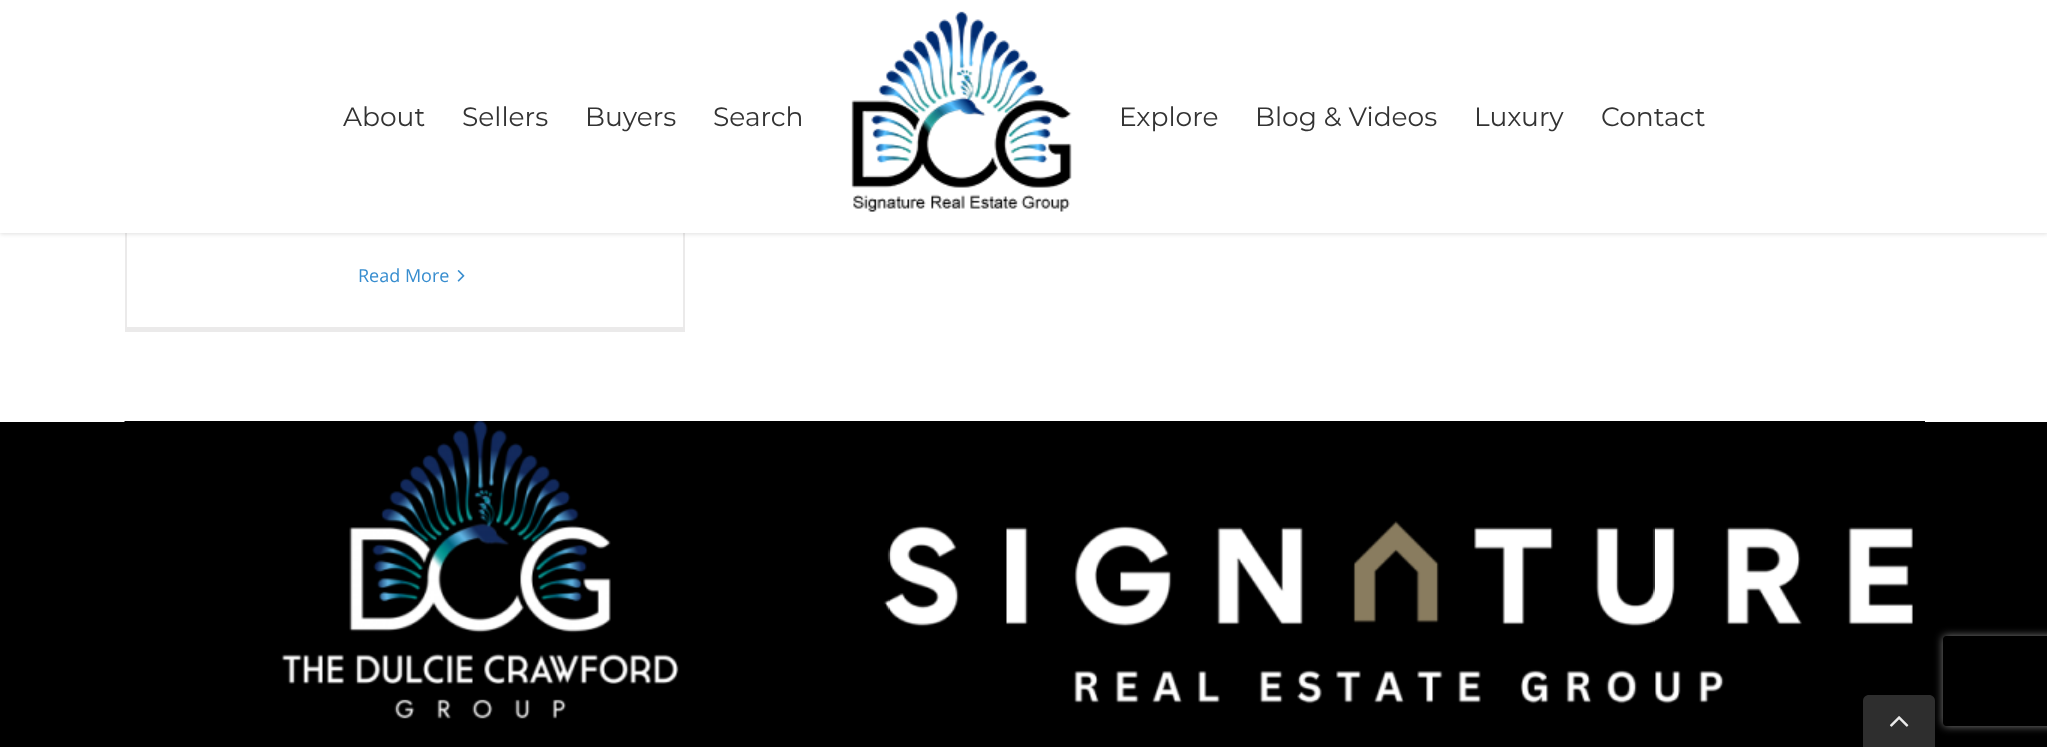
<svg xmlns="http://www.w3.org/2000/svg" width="2047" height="747">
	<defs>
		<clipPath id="clip1"><path d="M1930 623H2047V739H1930ZM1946 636H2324C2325.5 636 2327 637.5 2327 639V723C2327 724.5 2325.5 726 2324 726H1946C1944.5 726 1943 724.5 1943 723V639C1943 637.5 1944.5 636 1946 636Z" clip-rule="evenodd" /></clipPath>
	</defs>
	<rect width="100%" height="100%" fill="#FFFFFF" />
	<rect x="683" y="233" width="2" height="99" fill="#EBEAEA" />
	<rect x="125" y="327" width="559" height="5" fill="#EBEAEA" />
	<rect x="125" y="233" width="2" height="99" fill="#EBEAEA" />
	<rect x="0" y="2" width="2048" height="232" fill="#000000" fill-opacity="0.12" filter="blur(2px)" />
	<rect x="0" y="0" width="2047" height="233" fill="#FFFFFF" />
	<g font-family="Montserrat" font-size="26.5" fill="#333333">
		<text x="343" y="126">About</text>
		<text x="462" y="126">Sellers</text>
		<text x="585" y="126">Buyers</text>
		<text x="713" y="126">Search</text>
	</g>
	<image x="851" y="11" width="221" height="201" href="assets/img1.png" />
	<g font-family="Montserrat" font-size="26.5" fill="#333333">
		<text x="1119" y="126">Explore</text>
		<text x="1255" y="126">Blog &amp; Videos</text>
		<text x="1474" y="126">Luxury</text>
		<text x="1601" y="126">Contact</text>
	</g>
	<text x="358" y="282" font-family="Open Sans" font-size="18" fill="#378DCF">Read More</text>
	<image x="457" y="270" width="8" height="12" href="assets/img2.png" />
	<rect x="0" y="422" width="2047" height="325" fill="#000000" />
	<image x="124" y="421" width="1801" height="298" href="assets/img3.png" />
	<g clip-path="url(#clip1)">
		<rect x="1943" y="636" width="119" height="90" rx="3" fill="#808080" filter="blur(4px)" />
	</g>
	<path d="M1869 695H1929C1932.5 695 1935 697.5 1935 701V747H1863V701C1863 697.5 1865.5 695 1869 695Z" fill="#2E2E2E" />
	<image x="1890" y="716" width="19" height="11" href="assets/img4.png" />
</svg>
